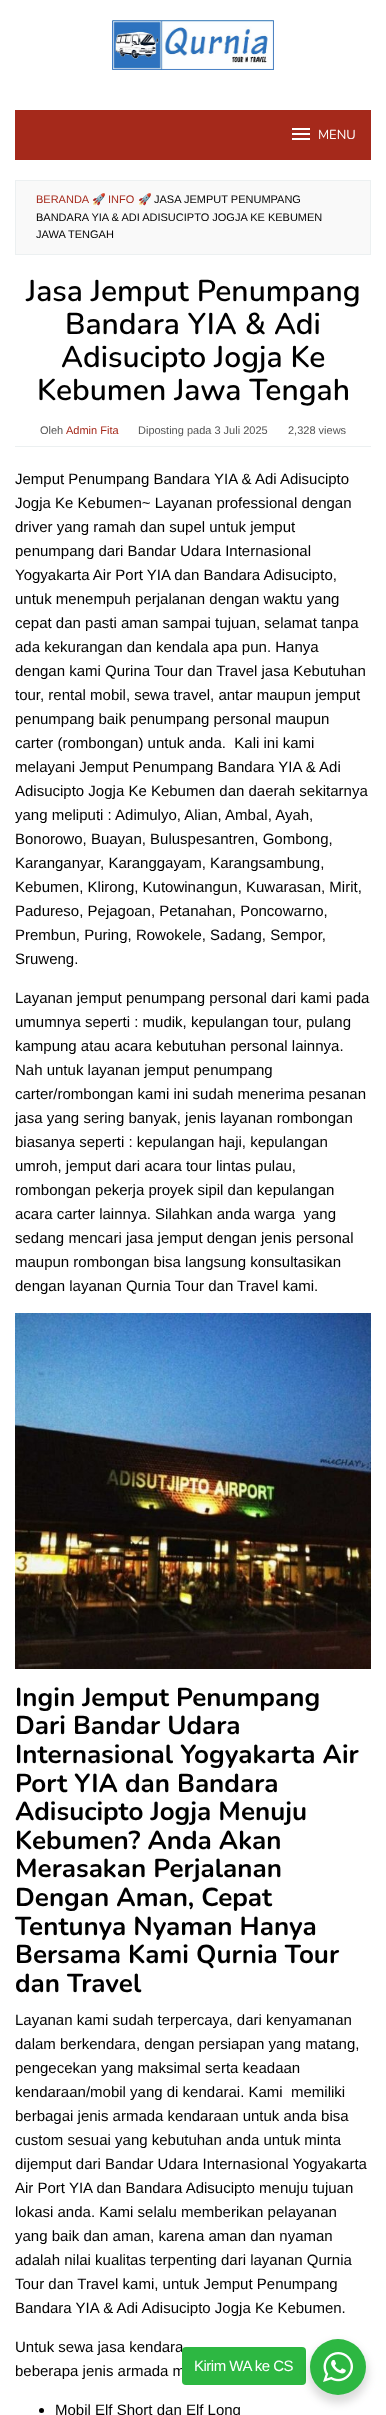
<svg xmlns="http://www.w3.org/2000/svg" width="386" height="2415">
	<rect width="100%" height="100%" fill="#FFFFFF" />
	<image x="112" y="20" width="162" height="50" href="assets/img1.png" />
	<rect x="15" y="110" width="356" height="50" fill="#A5291B" />
	<image x="292" y="128" width="18" height="12" href="assets/img2.png" />
	<text x="318" y="139" font-family="Nunito" font-size="13" fill="#FFFFFF">MENU</text>
	<rect x="15.5" y="180.5" width="355" height="74" fill="#F9F9F9" stroke="#ECF0F1" />
	<text x="36" y="203" font-family="Liberation Sans" font-size="11" fill="#A5291B">BERANDA</text>
	<text x="92" y="203" font-family="Noto Color Emoji" font-size="11" fill="#000000">🚀</text>
	<text x="108" y="203" font-family="Liberation Sans" font-size="11" fill="#A5291B">INFO</text>
	<text x="138" y="203" font-family="Noto Color Emoji" font-size="11" fill="#000000">🚀</text>
	<g font-family="Liberation Sans" font-size="11" fill="#000000">
		<text x="154" y="203">JASA JEMPUT PENUMPANG</text>
		<text x="36" y="221">BANDARA YIA &amp; ADI ADISUCIPTO JOGJA KE KEBUMEN</text>
		<text x="36" y="238">JAWA TENGAH</text>
	</g>
	<rect x="15" y="446" width="356" height="1" fill="#ECF0F1" />
	<g font-family="Nunito" font-size="30" font-weight="600" fill="#000000">
		<text x="26" y="301">Jasa Jemput Penumpang</text>
		<text x="65" y="334">Bandara YIA &amp; Adi</text>
		<text x="61" y="367">Adisucipto Jogja Ke</text>
		<text x="37" y="400">Kebumen Jawa Tengah</text>
	</g>
	<text x="40" y="434" font-family="Liberation Sans" font-size="11" fill="#555555">Oleh</text>
	<text x="66" y="434" font-family="Liberation Sans" font-size="11" fill="#A5291B">Admin Fita</text>
	<g font-family="Liberation Sans" font-size="11" fill="#555555">
		<text x="138" y="434">Diposting pada 3 Juli 2025</text>
		<text x="288" y="434">2,328 views</text>
	</g>
	<g font-family="Liberation Sans" font-size="15" fill="#000000">
		<text x="15" y="484">Jemput Penumpang Bandara YIA &amp; Adi Adisucipto</text>
		<text x="15" y="508">Jogja Ke Kebumen~ Layanan professional dengan</text>
		<text x="15" y="532">driver yang ramah dan supel untuk jemput</text>
		<text x="15" y="556">penumpang dari Bandar Udara Internasional</text>
		<text x="15" y="580">Yogyakarta Air Port YIA dan Bandara Adisucipto,</text>
		<text x="15" y="604">untuk menempuh perjalanan dengan waktu yang</text>
		<text x="15" y="628">cepat dan pasti aman sampai tujuan, selamat tanpa</text>
		<text x="15" y="652">ada kekurangan dan kendala apa pun. Hanya</text>
		<text x="15" y="676">dengan kami Qurina Tour dan Travel jasa Kebutuhan</text>
		<text x="15" y="700">tour, rental mobil, sewa travel, antar maupun jemput</text>
		<text x="15" y="724">penumpang baik penumpang personal maupun</text>
		<text x="15" y="748" xml:space="preserve">carter (rombongan) untuk anda.  Kali ini kami</text>
		<text x="15" y="772">melayani Jemput Penumpang Bandara YIA &amp; Adi</text>
		<text x="15" y="796">Adisucipto Jogja Ke Kebumen dan daerah sekitarnya</text>
		<text x="15" y="820">yang meliputi : Adimulyo, Alian, Ambal, Ayah,</text>
		<text x="15" y="844">Bonorowo, Buayan, Buluspesantren, Gombong,</text>
		<text x="15" y="868">Karanganyar, Karanggayam, Karangsambung,</text>
		<text x="15" y="892">Kebumen, Klirong, Kutowinangun, Kuwarasan, Mirit,</text>
		<text x="15" y="916">Padureso, Pejagoan, Petanahan, Poncowarno,</text>
		<text x="15" y="940">Prembun, Puring, Rowokele, Sadang, Sempor,</text>
		<text x="15" y="964">Sruweng.</text>
		<text x="15" y="1003">Layanan jemput penumpang personal dari kami pada</text>
		<text x="15" y="1027">umumnya seperti : mudik, kepulangan tour, pulang</text>
		<text x="15" y="1051">kampung atau acara kebutuhan personal lainnya.</text>
		<text x="15" y="1075">Nah untuk layanan jemput penumpang</text>
		<text x="15" y="1099">carter/rombongan kami ini sudah menerima pesanan</text>
		<text x="15" y="1123">jasa yang sering banyak, jenis layanan rombongan</text>
		<text x="15" y="1147">biasanya seperti : kepulangan haji, kepulangan</text>
		<text x="15" y="1171">umroh, jemput dari acara tour lintas pulau,</text>
		<text x="15" y="1195">rombongan pekerja proyek sipil dan kepulangan</text>
		<text x="15" y="1219" xml:space="preserve">acara carter lainnya. Silahkan anda warga  yang</text>
		<text x="15" y="1243">sedang mencari jasa jemput dengan jenis personal</text>
		<text x="15" y="1267">maupun rombongan bisa langsung konsultasikan</text>
		<text x="15" y="1291">dengan layanan Qurnia Tour dan Travel kami.</text>
	</g>
	<image x="15" y="1313" width="356" height="356" href="assets/img3.png" />
	<g font-family="Nunito" font-size="26" font-weight="700" fill="#000000">
		<text x="15" y="1706">Ingin Jemput Penumpang</text>
		<text x="15" y="1734">Dari Bandar Udara</text>
		<text x="15" y="1763">Internasional Yogyakarta Air</text>
		<text x="15" y="1792">Port YIA dan Bandara</text>
		<text x="15" y="1820">Adisucipto Jogja Menuju</text>
		<text x="15" y="1849">Kebumen? Anda Akan</text>
		<text x="15" y="1877">Merasakan Perjalanan</text>
		<text x="15" y="1906">Dengan Aman, Cepat</text>
		<text x="15" y="1935">Tentunya Nyaman Hanya</text>
		<text x="15" y="1963">Bersama Kami Qurnia Tour</text>
		<text x="15" y="1992">dan Travel</text>
	</g>
	<g font-family="Liberation Sans" font-size="15" fill="#000000">
		<text x="15" y="2025">Layanan kami sudah terpercaya, dari kenyamanan</text>
		<text x="15" y="2049">dalam berkendara, dengan persiapan yang matang,</text>
		<text x="15" y="2073">pengecekan yang maksimal serta keadaan</text>
		<text x="15" y="2097" xml:space="preserve">kendaraan/mobil yang di kendarai. Kami  memiliki</text>
		<text x="15" y="2121">berbagai jenis armada kendaraan untuk anda bisa</text>
		<text x="15" y="2145">custom sesuai yang kebutuhan anda untuk minta</text>
		<text x="15" y="2169">dijemput dari Bandar Udara Internasional Yogyakarta</text>
		<text x="15" y="2193">Air Port YIA dan Bandara Adisucipto menuju tujuan</text>
		<text x="15" y="2217">lokasi anda. Kami selalu memberikan pelayanan</text>
		<text x="15" y="2241">yang baik dan aman, karena aman dan nyaman</text>
		<text x="15" y="2265">adalah nilai kualitas terpenting dari layanan Qurnia</text>
		<text x="15" y="2289">Tour dan Travel kami, untuk Jemput Penumpang</text>
		<text x="15" y="2313">Bandara YIA &amp; Adi Adisucipto Jogja Ke Kebumen.</text>
		<text x="15" y="2352">Untuk sewa jasa kendara</text>
		<text x="15" y="2376">beberapa jenis armada m</text>
	</g>
	<circle cx="41.5" cy="2410.5" r="2.5" fill="#000000" />
	<text x="55" y="2415" font-family="Liberation Sans" font-size="15" fill="#000000">Mobil Elf Short dan Elf Long</text>
	<rect x="182" y="2347" width="124" height="38" rx="4" fill="#2DB742" />
	<text x="194" y="2371" font-family="Liberation Sans" font-size="15" letter-spacing="-0.5" fill="#FFFFFF">Kirim WA ke CS</text>
	<rect x="308" y="2343" width="60" height="60" rx="30" fill="#000000" fill-opacity="0.14" filter="blur(4px)" />
	<circle cx="338" cy="2367" r="28" fill="#2DB742" />
	<image x="323" y="2352" width="30" height="30" href="assets/img4.png" />
</svg>
